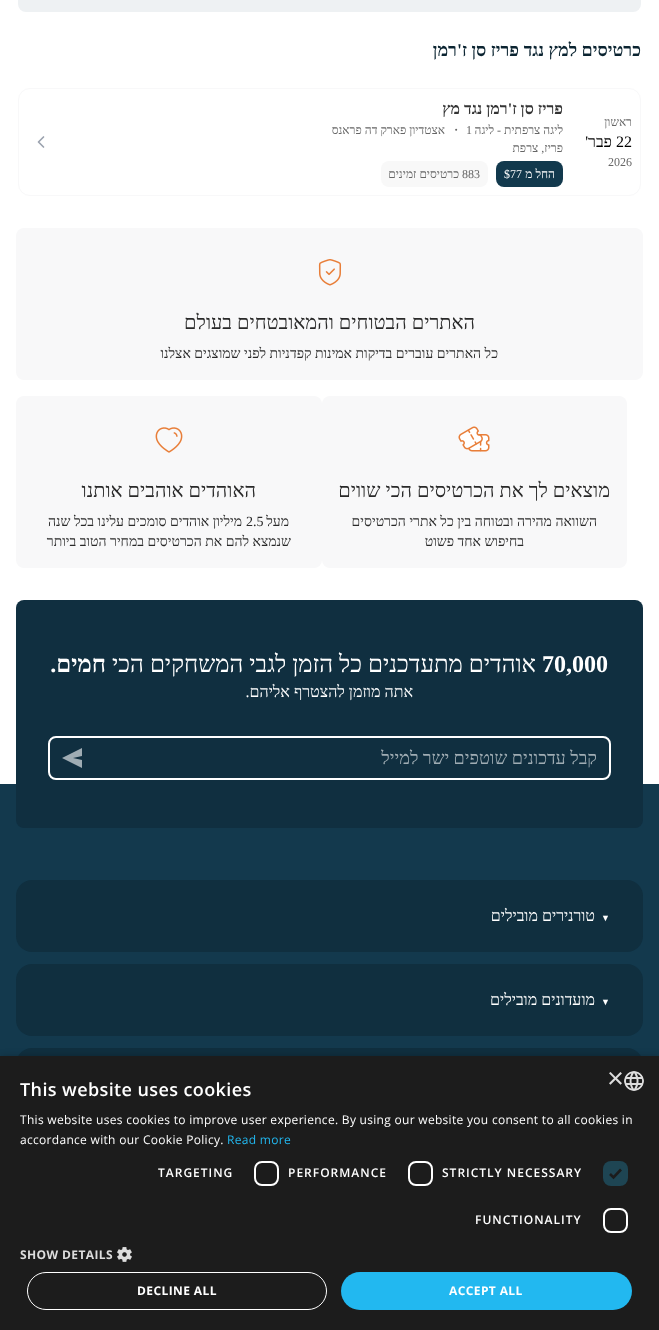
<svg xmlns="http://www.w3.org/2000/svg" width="659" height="1330">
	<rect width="100%" height="100%" fill="#FFFFFF" />
	<rect x="18" y="-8" width="623" height="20" rx="8" fill="#EEF1F3" />
	<text x="641" y="56" font-family="Liberation Serif" font-size="18" font-weight="700" direction="rtl" fill="#0B2431">כרטיסים למץ נגד פריז סן ז'רמן</text>
	<rect x="18.5" y="88.5" width="622" height="107" rx="11.5" fill="none" stroke="#F8F8F9" />
	<text x="632" y="126" font-family="Liberation Serif" font-size="12" direction="rtl" fill="#666666">ראשון</text>
	<text x="616" y="147" font-family="Liberation Serif" font-size="16" fill="#000000">22</text>
	<text x="612" y="147" font-family="Liberation Serif" font-size="16" direction="rtl" fill="#000000">פבר'</text>
	<text x="608" y="166" font-family="Liberation Serif" font-size="12" fill="#666666">2026</text>
	<text x="563" y="114" font-family="Liberation Serif" font-size="16" font-weight="700" direction="rtl" fill="#333333">פריז סן ז'רמן נגד מץ</text>
	<text x="563" y="134" font-family="Liberation Serif" font-size="12" direction="rtl" fill="#666666">ליגה צרפתית - ליגה</text>
	<text x="466" y="134" font-family="Liberation Serif" font-size="12" fill="#666666">1</text>
	<text x="450" y="134" font-family="WenQuanYi Zen Hei" font-size="12" font-weight="500" fill="#666666">・</text>
	<g font-family="Liberation Serif" font-size="12" direction="rtl" fill="#666666">
		<text x="445" y="134">אצטדיון פארק דה פראנס</text>
		<text x="563" y="152">פריז, צרפת</text>
	</g>
	<rect x="496" y="161" width="67" height="26" rx="8" fill="#12394D" />
	<text x="555" y="178" font-family="Liberation Serif" font-size="12" direction="rtl" fill="#FFFFFF">החל מ</text>
	<text x="504" y="178" font-family="Liberation Serif" font-size="12" fill="#FFFFFF">$77</text>
	<rect x="381" y="161" width="107" height="26" rx="8" fill="#F8F8F8" />
	<text x="462" y="178" font-family="Liberation Serif" font-size="12" fill="#666666">883</text>
	<text x="459" y="178" font-family="Liberation Serif" font-size="12" direction="rtl" fill="#666666">כרטיסים זמינים</text>
	<path d="M43.5 147L38.5 142L43.5 137" fill="none" stroke="#9CA3AF" stroke-width="1.7" stroke-linecap="round" stroke-linejoin="round" />
	<rect x="16" y="228" width="627" height="152" rx="8" fill="#F8F8F9" />
	<image x="318" y="259" width="24" height="27" href="assets/img1.png" />
	<text x="475" y="329" font-family="Liberation Serif" font-size="20" direction="rtl" fill="#292929">האתרים הבטוחים והמאובטחים בעולם</text>
	<text x="498" y="358" font-family="Liberation Serif" font-size="14" direction="rtl" fill="#292929">כל האתרים עוברים בדיקות אמינות קפדניות לפני שמוצגים אצלנו</text>
	<rect x="322" y="396" width="305" height="172" rx="8" fill="#F8F8F9" />
	<image x="458" y="426" width="32" height="26" href="assets/img2.png" />
	<text x="610" y="497" font-family="Liberation Serif" font-size="20" direction="rtl" fill="#292929">מוצאים לך את הכרטיסים הכי שווים</text>
	<g font-family="Liberation Serif" font-size="14" direction="rtl" fill="#292929">
		<text x="597" y="526">השוואה מהירה ובטוחה בין כל אתרי הכרטיסים</text>
		<text x="524" y="546">בחיפוש אחד פשוט</text>
	</g>
	<rect x="16" y="396" width="306" height="172" rx="8" fill="#F8F8F9" />
	<image x="155" y="427" width="28" height="26" href="assets/img3.png" />
	<text x="256" y="497" font-family="Liberation Serif" font-size="20" direction="rtl" fill="#292929">האוהדים אוהבים אותנו</text>
	<text x="289" y="526" font-family="Liberation Serif" font-size="14" direction="rtl" fill="#292929">מעל</text>
	<text x="246" y="526" font-family="Liberation Serif" font-size="14" fill="#292929">2.5</text>
	<g font-family="Liberation Serif" font-size="14" direction="rtl" fill="#292929">
		<text x="242" y="526">מיליון אוהדים סומכים עלינו בכל שנה</text>
		<text x="291" y="546">שנמצא להם את הכרטיסים במחיר הטוב ביותר</text>
	</g>
	<rect x="0" y="784" width="659" height="272" fill="#13394D" />
	<rect x="16" y="600" width="627" height="228" rx="8" fill="#102F40" />
	<text x="542" y="672" font-family="Liberation Serif" font-size="24" font-weight="700" fill="#FFFFFF">70,000</text>
	<text x="536" y="672" font-family="Liberation Serif" font-size="24" direction="rtl" fill="#FFFFFF">אוהדים מתעדכנים כל הזמן לגבי המשחקים הכי</text>
	<text x="106" y="672" font-family="Liberation Serif" font-size="24" font-weight="700" direction="rtl" fill="#FFFFFF">חמים.</text>
	<text x="413" y="697" font-family="Liberation Serif" font-size="16" direction="rtl" fill="#FFFFFF">אתה מוזמן להצטרף אליהם.</text>
	<rect x="49" y="737" width="561" height="42" rx="7" fill="none" stroke="#FFFFFF" stroke-width="2" />
	<text x="597" y="764" font-family="Liberation Serif" font-size="18" direction="rtl" fill="#9FACB3">קבל עדכונים שוטפים ישר למייל</text>
	<path d="M62 758L82 768V760L73 758L82 756V748Z" fill="#9FACB3" />
	<rect x="16" y="880" width="627" height="72" rx="16" fill="#102F3F" />
	<text x="601" y="921" font-family="Liberation Serif" font-size="9" letter-spacing="9" fill="#FFFFFF">▼</text>
	<text x="595" y="921" font-family="Liberation Serif" font-size="16" direction="rtl" fill="#FFFFFF">טורנירים מובילים</text>
	<rect x="16" y="964" width="627" height="72" rx="16" fill="#102F3F" />
	<text x="601" y="1005" font-family="Liberation Serif" font-size="9" letter-spacing="9" fill="#FFFFFF">▼</text>
	<text x="595" y="1005" font-family="Liberation Serif" font-size="16" direction="rtl" fill="#FFFFFF">מועדונים מובילים</text>
	<rect x="16" y="1048" width="627" height="72" rx="16" fill="#102F3F" />
	<rect x="1" y="1058" width="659" height="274" fill="#000000" fill-opacity="0.35" filter="blur(4px)" />
	<rect x="0" y="1056" width="659" height="274" fill="#1C1C1C" />
	<image x="624" y="1071" width="20" height="20" href="assets/img4.png" />
	<text x="607" y="1088" font-family="Liberation Sans" font-size="29" fill="#DDDDDD">×</text>
	<text x="20" y="1096" font-family="Open Sans" font-size="18" font-weight="600" letter-spacing="0.4" fill="#FFFFFF">This website uses cookies</text>
	<text x="20" y="1124" font-family="Open Sans" font-size="12" letter-spacing="0.3" fill="#FFFFFF">This website uses cookies to improve user experience. By using our website you consent to all cookies in</text>
	<text x="227" y="1144" font-family="Open Sans" font-size="12" letter-spacing="0.3" fill="#22B8F0">Read more</text>
	<text x="20" y="1144" font-family="Open Sans" font-size="12" letter-spacing="0.3" fill="#FFFFFF">accordance with our Cookie Policy.</text>
	<rect x="603" y="1161" width="25" height="25" rx="8" fill="#1E4553" />
	<path d="M610 1174L613.5 1177.5L621 1169.5" fill="none" stroke="#1C1C1C" stroke-width="2.6" />
	<text x="442" y="1177" font-family="Open Sans" font-size="12" font-weight="600" letter-spacing="1" fill="#FFFFFF">STRICTLY NECESSARY</text>
	<rect x="409" y="1162" width="23" height="23" rx="7" fill="none" stroke="#FFFFFF" stroke-width="2" />
	<text x="288" y="1177" font-family="Open Sans" font-size="12" font-weight="600" letter-spacing="1" fill="#FFFFFF">PERFORMANCE</text>
	<rect x="255" y="1162" width="23" height="23" rx="7" fill="none" stroke="#FFFFFF" stroke-width="2" />
	<text x="158" y="1177" font-family="Open Sans" font-size="12" font-weight="600" letter-spacing="1" fill="#FFFFFF">TARGETING</text>
	<rect x="604" y="1209" width="23" height="23" rx="7" fill="none" stroke="#FFFFFF" stroke-width="2" />
	<text x="475" y="1224" font-family="Open Sans" font-size="12" font-weight="600" letter-spacing="1" fill="#FFFFFF">FUNCTIONALITY</text>
	<image x="117" y="1247" width="15" height="15" href="assets/img5.png" />
	<text x="20" y="1259" font-family="Open Sans" font-size="12" font-weight="700" letter-spacing="0.4" fill="#DDDDDD">SHOW DETAILS</text>
	<rect x="341" y="1272" width="291" height="38" rx="19" fill="#22B8F0" />
	<text x="449" y="1295" font-family="Open Sans" font-size="12" font-weight="700" letter-spacing="0.4" fill="#FFFFFF">ACCEPT ALL</text>
	<rect x="27.5" y="1272.5" width="299" height="37" rx="18.5" fill="none" stroke="#FFFFFF" />
	<text x="137" y="1295" font-family="Open Sans" font-size="12" font-weight="700" letter-spacing="0.4" fill="#FFFFFF">DECLINE ALL</text>
</svg>
